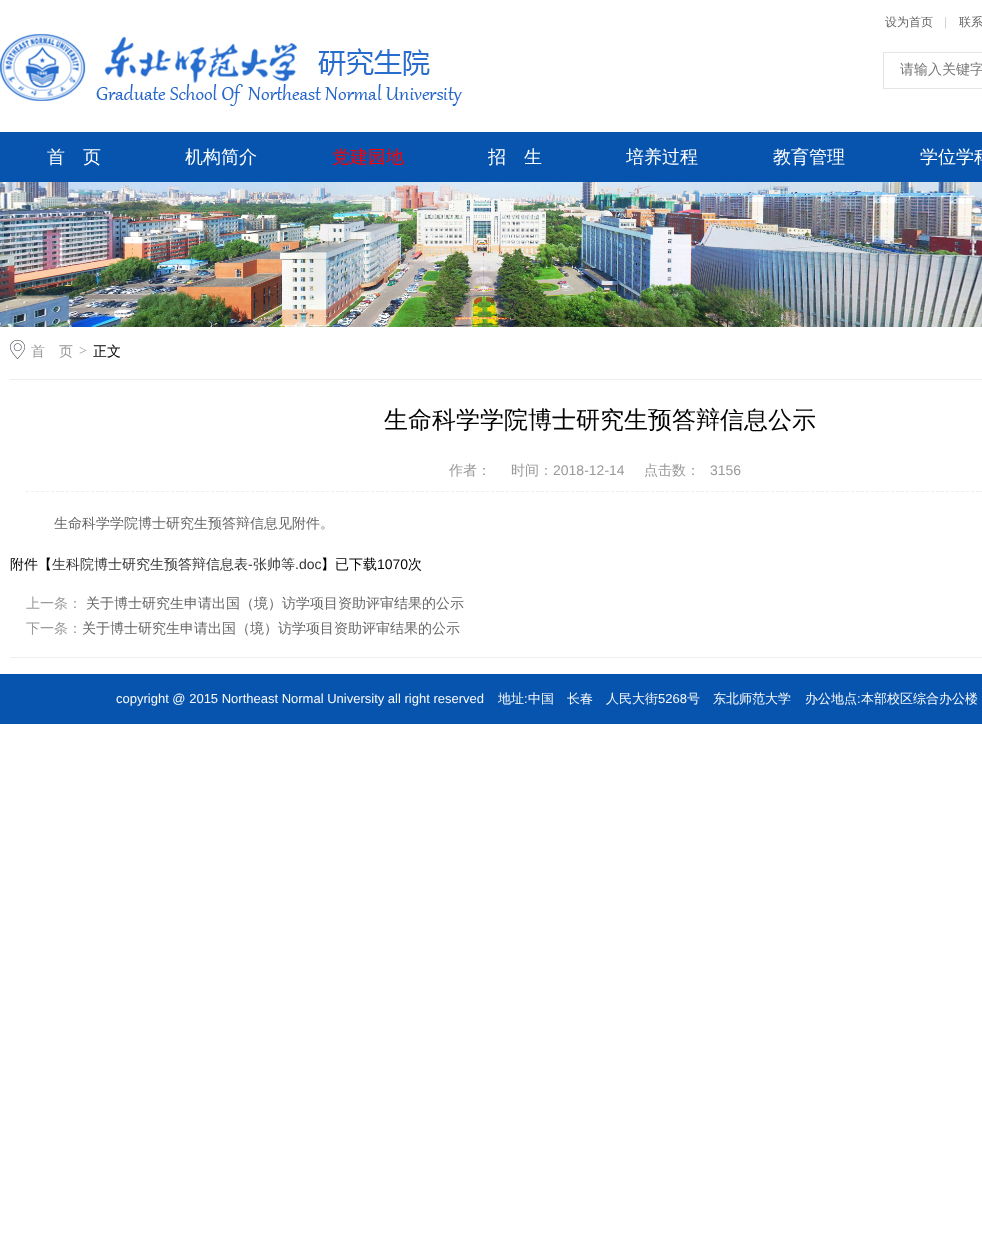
<svg xmlns="http://www.w3.org/2000/svg" width="982" height="1234">
	<rect width="100%" height="100%" fill="#FFFFFF" />
	<image x="0" y="34" width="462" height="72" href="assets/img1.png" />
	<text x="885" y="26" font-family="WenQuanYi Zen Hei" font-size="12" font-weight="500" fill="#666666">设为首页</text>
	<text x="944" y="26" font-family="Liberation Sans" font-size="12" fill="#D1D1D1">|</text>
	<text x="959" y="26" font-family="WenQuanYi Zen Hei" font-size="12" font-weight="500" fill="#666666">联系</text>
	<rect x="883.5" y="52.5" width="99" height="36" fill="none" stroke="#E5E5E5" />
	<text x="900" y="74" font-family="WenQuanYi Zen Hei" font-size="14" font-weight="500" fill="#757575">请输入关键字</text>
	<rect x="0" y="132" width="982" height="50" fill="#0654AE" />
	<g font-family="WenQuanYi Zen Hei" font-size="18" font-weight="500" fill="#FFFFFF">
		<text x="47" y="163">首　页</text>
		<text x="185" y="163">机构简介</text>
	</g>
	<text x="332" y="163" font-family="WenQuanYi Zen Hei" font-size="18" font-weight="500" fill="#FF0000">党建园地</text>
	<g font-family="WenQuanYi Zen Hei" font-size="18" font-weight="500" fill="#FFFFFF">
		<text x="488" y="163">招　生</text>
		<text x="626" y="163">培养过程</text>
		<text x="773" y="163">教育管理</text>
		<text x="920" y="163">学位学科</text>
	</g>
	<image x="0" y="182" width="982" height="145" href="assets/img2.png" />
	<image x="10" y="340" width="15" height="19" href="assets/img3.png" />
	<text x="31" y="356" font-family="WenQuanYi Zen Hei" font-size="14" font-weight="500" fill="#999999">首　页</text>
	<text x="79" y="355" font-family="Liberation Serif" font-size="14" fill="#999999">&gt;</text>
	<text x="93" y="356" font-family="WenQuanYi Zen Hei" font-size="14" font-weight="500" fill="#000000">正文</text>
	<rect x="10" y="379" width="972" height="1" fill="#EEEEEE" />
	<text x="384" y="428" font-family="WenQuanYi Zen Hei" font-size="24" font-weight="500" fill="#000000">生命科学学院博士研究生预答辩信息公示</text>
	<path d="M26 491.5H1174" fill="none" stroke="#EEEEEE" stroke-dasharray="3 2" />
	<g font-family="WenQuanYi Zen Hei" font-size="14" font-weight="500" fill="#999999">
		<text x="449" y="475">作者：</text>
		<text x="511" y="475">时间：</text>
	</g>
	<text x="553" y="475" font-family="Liberation Sans" font-size="14" fill="#999999">2018-12-14</text>
	<text x="644" y="475" font-family="WenQuanYi Zen Hei" font-size="14" font-weight="500" fill="#999999">点击数：</text>
	<text x="710" y="475" font-family="Liberation Sans" font-size="14" fill="#999999">3156</text>
	<text x="54" y="528" font-family="WenQuanYi Zen Hei" font-size="14" font-weight="500" fill="#666666">生命科学学院博士研究生预答辩信息见附件。</text>
	<text x="10" y="569" font-family="WenQuanYi Zen Hei" font-size="14" font-weight="500" fill="#000000">附件【</text>
	<text x="52" y="569" font-family="WenQuanYi Zen Hei" font-size="14" font-weight="500" fill="#333333">生科院博士研究生预答辩信息表</text>
	<text x="248" y="569" font-family="Liberation Sans" font-size="14" fill="#333333">-</text>
	<text x="253" y="569" font-family="WenQuanYi Zen Hei" font-size="14" font-weight="500" fill="#333333">张帅等</text>
	<text x="295" y="569" font-family="Liberation Sans" font-size="14" fill="#333333">.doc</text>
	<text x="321" y="569" font-family="WenQuanYi Zen Hei" font-size="14" font-weight="500" fill="#000000">】已下载</text>
	<text x="377" y="569" font-family="Liberation Sans" font-size="14" fill="#000000">1070</text>
	<text x="408" y="569" font-family="WenQuanYi Zen Hei" font-size="14" font-weight="500" fill="#000000">次</text>
	<rect x="10" y="657" width="972" height="1" fill="#EEEEEE" />
	<text x="26" y="608" font-family="WenQuanYi Zen Hei" font-size="14" font-weight="500" fill="#999999">上一条：</text>
	<text x="86" y="608" font-family="WenQuanYi Zen Hei" font-size="14" font-weight="500" fill="#666666">关于博士研究生申请出国（境）访学项目资助评审结果的公示</text>
	<text x="26" y="633" font-family="WenQuanYi Zen Hei" font-size="14" font-weight="500" fill="#999999">下一条：</text>
	<text x="82" y="633" font-family="WenQuanYi Zen Hei" font-size="14" font-weight="500" fill="#666666">关于博士研究生申请出国（境）访学项目资助评审结果的公示</text>
	<rect x="0" y="674" width="982" height="50" fill="#0654AE" />
	<text x="116" y="703" font-family="Liberation Sans" font-size="13" fill="#F9FAFB">copyright @ 2015 Northeast Normal University all right reserved</text>
	<text x="498" y="703" font-family="WenQuanYi Zen Hei" font-size="13" font-weight="500" fill="#F9FAFB">地址 中国　长春　人民大街</text>
	<text x="658" y="703" font-family="Liberation Sans" font-size="13" fill="#F9FAFB">5268</text>
	<g font-family="WenQuanYi Zen Hei" font-size="13" font-weight="500" fill="#F9FAFB">
		<text x="687" y="703">号　东北师范大学</text>
		<text x="805" y="703">办公地点 本部校区综合办公楼</text>
	</g>
	<g font-family="Liberation Sans" font-size="13" fill="#F9FAFB">
		<text x="524" y="703">:</text>
		<text x="857" y="703">:</text>
	</g>
</svg>
